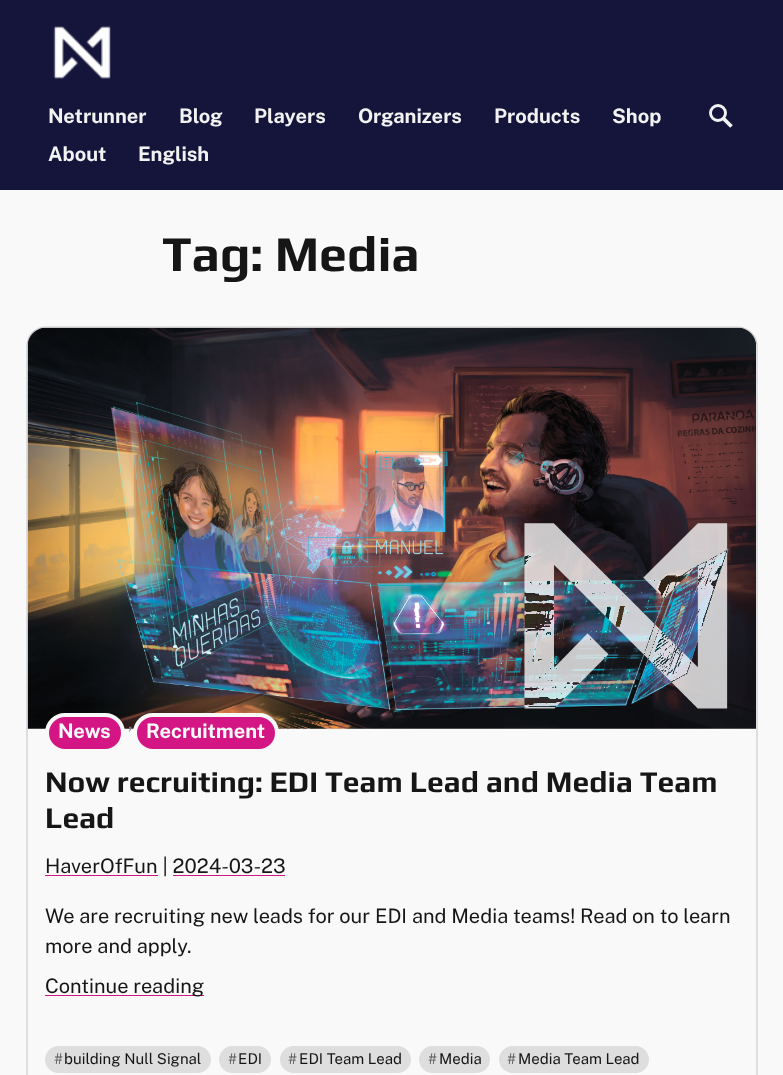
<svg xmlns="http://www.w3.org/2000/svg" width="783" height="1075">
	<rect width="100%" height="100%" fill="#F9F9F9" />
	<rect x="0" y="0" width="783" height="190" fill="#15153C" />
	<image x="53" y="26" width="58" height="53" href="assets/img1.png" />
	<g font-family="Public Sans" font-size="20" font-weight="700" fill="#F2F2F2">
		<text x="48" y="123">Netrunner</text>
		<text x="179" y="123">Blog</text>
		<text x="254" y="123">Players</text>
		<text x="358" y="123">Organizers</text>
		<text x="494" y="123">Products</text>
		<text x="612" y="123">Shop</text>
		<text x="48" y="161">About</text>
		<text x="138" y="161">English</text>
	</g>
	<circle cx="718" cy="113" r="7.5" fill="none" stroke="#F2F2F2" stroke-width="2.9" />
	<path d="M723 118L731.5 126.5" fill="none" stroke="#F2F2F2" stroke-width="3.8" />
	<text x="162" y="271" font-family="Play" font-size="50" font-weight="700" fill="#161616">Tag: Media</text>
	<path d="M32.5 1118.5C29 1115 27 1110 27 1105V346C27 341 29 336 32.5 332.5C36 329 41 327 46 327H737.5C742.5 327 747.5 329 751 332.5C755 336 757 341 757 346V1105C757 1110 755 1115 751 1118.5" fill="none" stroke="#CCCCCC" stroke-width="1.2" />
	<image x="27" y="327" width="729" height="402" href="assets/img2.png" />
	<rect x="47" y="715" width="76" height="36" rx="18" fill="#D31684" stroke="#F9F9F9" stroke-width="4" />
	<text x="58" y="738" font-family="Public Sans" font-size="20" font-weight="700" fill="#F9F9F9">News</text>
	<text x="128" y="729" font-family="Public Sans" font-size="20" fill="#827776">,</text>
	<rect x="135" y="715" width="142" height="36" rx="18" fill="#D31684" stroke="#F9F9F9" stroke-width="4" />
	<text x="146" y="738" font-family="Public Sans" font-size="20" font-weight="700" fill="#F9F9F9">Recruitment</text>
	<g font-family="Play" font-size="30" font-weight="700" fill="#161616">
		<text x="45" y="792">Now recruiting: EDI Team Lead and Media Team</text>
		<text x="45" y="828">Lead</text>
	</g>
	<rect x="45" y="875" width="113" height="1" fill="#D31684" />
	<text x="45" y="873" font-family="Public Sans" font-size="20" fill="#161616">HaverOfFun | 2024-03-23</text>
	<rect x="173" y="875" width="112" height="1" fill="#D31684" />
	<g font-family="Public Sans" font-size="20" fill="#161616">
		<text x="45" y="923">We are recruiting new leads for our EDI and Media teams! Read on to learn</text>
		<text x="45" y="953">more and apply.</text>
	</g>
	<rect x="45" y="995" width="159" height="1" fill="#D31684" />
	<text x="45" y="993" font-family="Public Sans" font-size="20" fill="#161616">Continue reading</text>
	<rect x="45" y="1046" width="166" height="27" rx="13.5" fill="#DEDEDE" />
	<text x="54" y="1064" font-family="Public Sans" font-size="15" fill="#555555">#</text>
	<text x="64" y="1064" font-family="Public Sans" font-size="15" fill="#161616">building Null Signal</text>
	<rect x="219" y="1046" width="52" height="27" rx="13.5" fill="#DEDEDE" />
	<text x="228" y="1064" font-family="Public Sans" font-size="15" fill="#555555">#</text>
	<text x="238" y="1064" font-family="Public Sans" font-size="15" fill="#161616">EDI</text>
	<rect x="280" y="1046" width="131" height="27" rx="13.5" fill="#DEDEDE" />
	<text x="288" y="1064" font-family="Public Sans" font-size="15" fill="#555555">#</text>
	<text x="299" y="1064" font-family="Public Sans" font-size="15" fill="#161616">EDI Team Lead</text>
	<rect x="419" y="1046" width="71" height="27" rx="13.5" fill="#DEDEDE" />
	<text x="428" y="1064" font-family="Public Sans" font-size="15" fill="#555555">#</text>
	<text x="439" y="1064" font-family="Public Sans" font-size="15" fill="#161616">Media</text>
	<rect x="499" y="1046" width="150" height="27" rx="13.5" fill="#DEDEDE" />
	<text x="507" y="1064" font-family="Public Sans" font-size="15" fill="#555555">#</text>
	<text x="518" y="1064" font-family="Public Sans" font-size="15" fill="#161616">Media Team Lead</text>
</svg>
